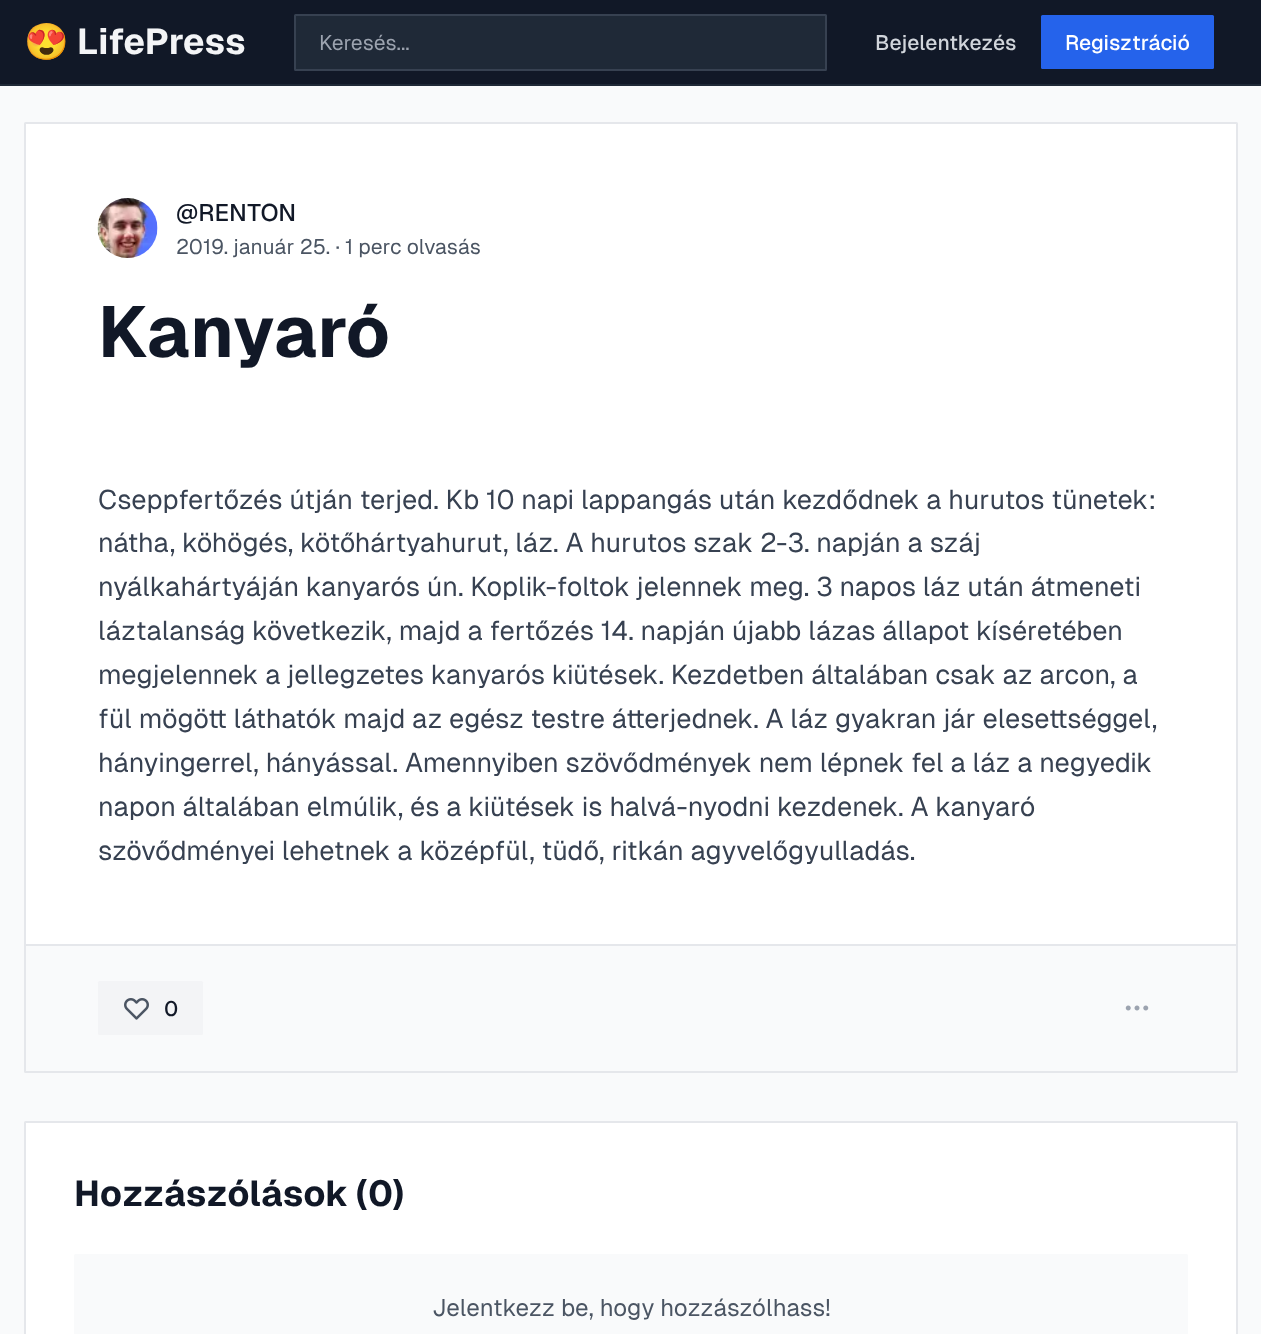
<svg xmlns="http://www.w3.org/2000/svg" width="1261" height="1334">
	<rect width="100%" height="100%" fill="#F9FAFB" />
	<rect x="0" y="0" width="1261" height="84" fill="#111827" />
	<rect x="0" y="84" width="1261" height="2" fill="#1F2937" />
	<text x="24" y="54" font-family="Noto Color Emoji" font-size="36" font-weight="700" fill="#F3F4F6">😍</text>
	<text x="77" y="54" font-family="Geist" font-size="36" font-weight="700" fill="#F3F4F6">LifePress</text>
	<rect x="295" y="15" width="531" height="55" rx="0.5" fill="#1F2937" stroke="#374151" stroke-width="2" />
	<text x="319" y="50" font-family="Geist" font-size="21" fill="#9CA3AF">Keresés...</text>
	<text x="875" y="50" font-family="Geist" font-size="21" font-weight="500" fill="#D1D5DB">Bejelentkezés</text>
	<rect x="1041" y="15" width="173" height="54" rx="1.5" fill="#2563EB" />
	<text x="1065" y="50" font-family="Geist" font-size="21" font-weight="500" fill="#FFFFFF">Regisztráció</text>
	<rect x="25" y="123" width="1212" height="949" rx="0.5" fill="#FFFFFF" stroke="#E5E7EB" stroke-width="2" />
	<image x="97" y="198" width="61" height="60" href="assets/img1.png" />
	<text x="176" y="221" font-family="Geist" font-size="24" font-weight="500" fill="#111827">@RENTON</text>
	<text x="176" y="254" font-family="Geist" font-size="21" fill="#4B5563">2019. január 25. · 1 perc olvasás</text>
	<text x="98" y="357" font-family="Geist" font-size="72" font-weight="700" fill="#111827">Kanyaró</text>
	<g font-family="Geist" font-size="27" fill="#374151">
		<text x="98" y="509">Cseppfertőzés útján terjed. Kb 10 napi lappangás után kezdődnek a hurutos tünetek:</text>
		<text x="98" y="552">nátha, köhögés, kötőhártyahurut, láz. A hurutos szak 2-3. napján a száj</text>
		<text x="98" y="596">nyálkahártyáján kanyarós ún. Koplik-foltok jelennek meg. 3 napos láz után átmeneti</text>
		<text x="98" y="640">láztalanság következik, majd a fertőzés 14. napján újabb lázas állapot kíséretében</text>
		<text x="98" y="684">megjelennek a jellegzetes kanyarós kiütések. Kezdetben általában csak az arcon, a</text>
		<text x="98" y="728">fül mögött láthatók majd az egész testre átterjednek. A láz gyakran jár elesettséggel,</text>
		<text x="98" y="772">hányingerrel, hányással. Amennyiben szövődmények nem lépnek fel a láz a negyedik</text>
		<text x="98" y="816">napon általában elmúlik, és a kiütések is halvá-nyodni kezdenek. A kanyaró</text>
		<text x="98" y="860">szövődményei lehetnek a középfül, tüdő, ritkán agyvelőgyulladás.</text>
	</g>
	<rect x="26" y="946" width="1210" height="125" fill="#F9FAFB" />
	<rect x="26" y="944" width="1210" height="2" fill="#E5E7EB" />
	<rect x="98" y="981" width="105" height="54" rx="1.5" fill="#F3F4F6" />
	<image x="124" y="998" width="25" height="22" href="assets/img2.png" />
	<text x="164" y="1016" font-family="Geist" font-size="21" font-weight="500" fill="#111827">0</text>
	<image x="1125" y="1005" width="24" height="6" href="assets/img3.png" />
	<rect x="25" y="1122" width="1212" height="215" rx="0.5" fill="#FFFFFF" stroke="#E5E7EB" stroke-width="2" />
	<g font-family="Geist" font-size="36" font-weight="700" fill="#111827">
		<text x="74" y="1206" word-spacing="-1">Hozzászólások (</text>
		<text x="368" y="1206">0</text>
		<text x="392" y="1206">)</text>
	</g>
	<rect x="74" y="1254" width="1114" height="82" rx="1.5" fill="#F9FAFB" />
	<text x="432" y="1316" font-family="Geist" font-size="24" fill="#4B5563">Jelentkezz be, hogy hozzászólhass!</text>
</svg>
